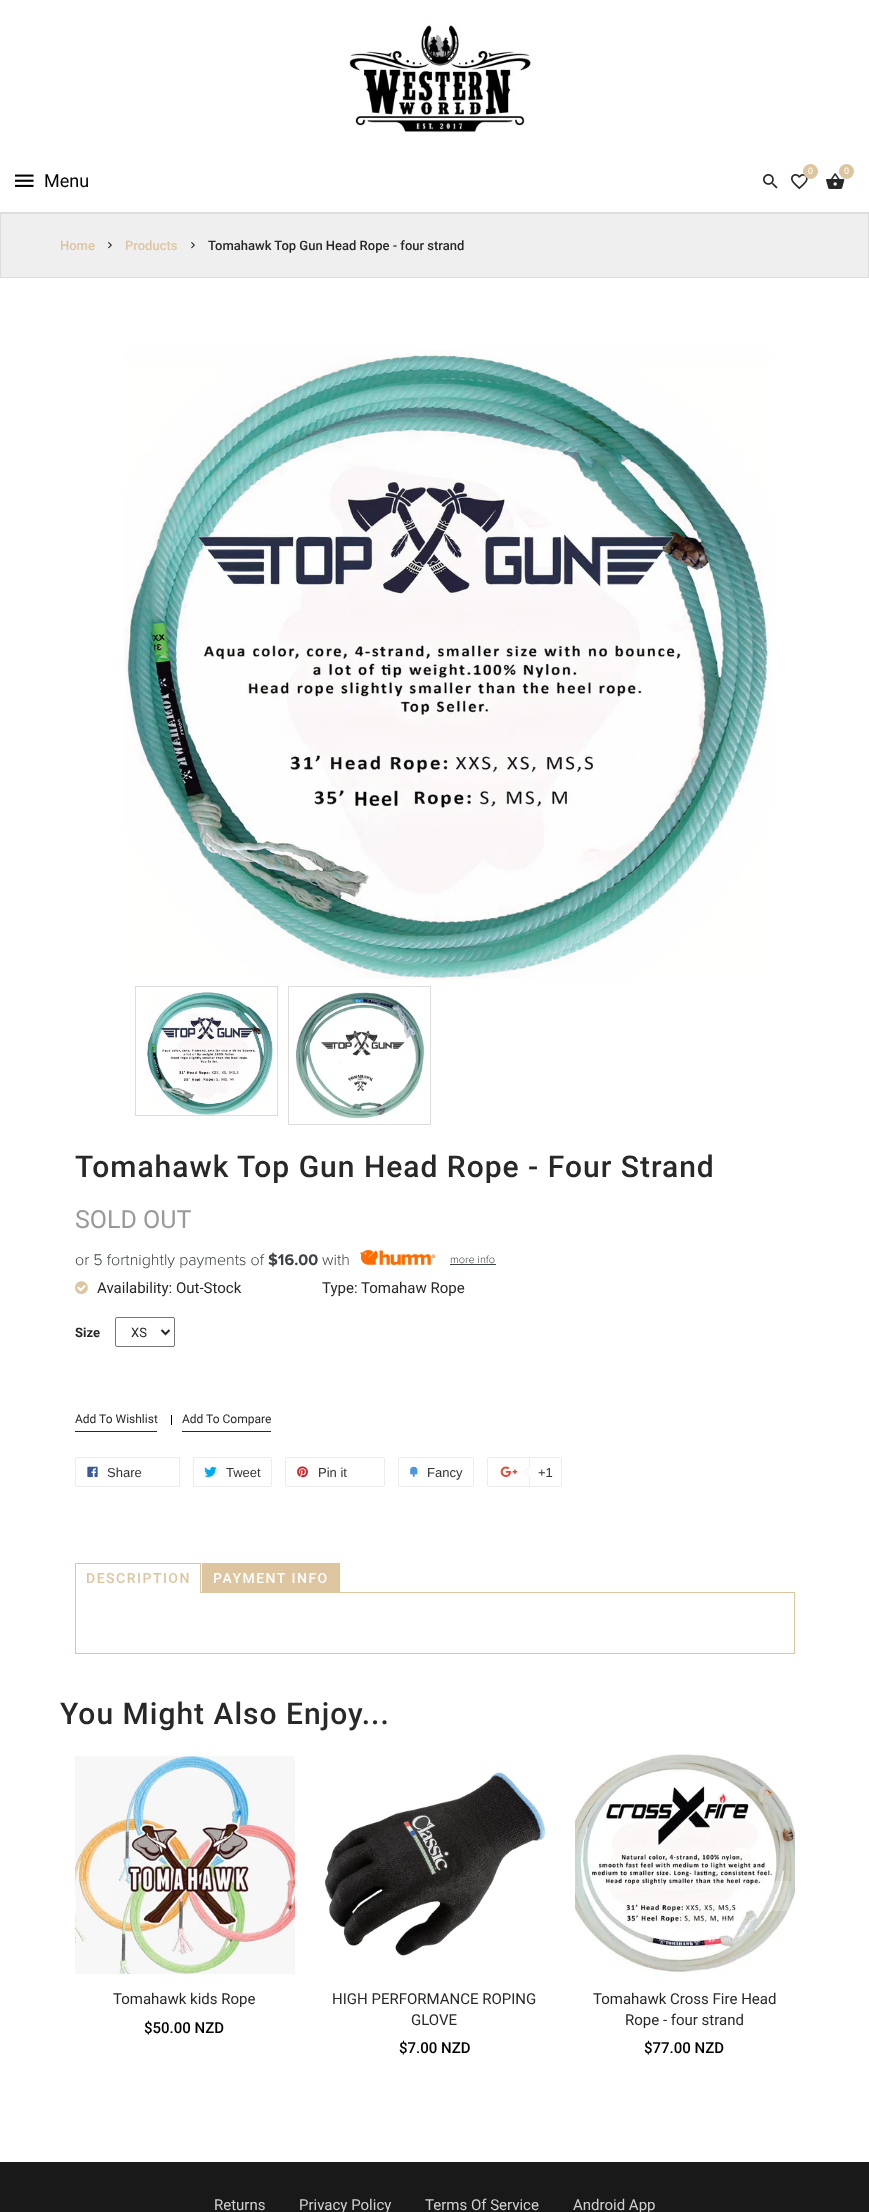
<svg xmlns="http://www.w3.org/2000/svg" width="869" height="2212">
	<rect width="100%" height="100%" fill="#FFFFFF" />
	<rect x="0" y="212" width="869" height="1" fill="#DDDDDD" />
	<image x="349" y="22" width="183" height="112" href="assets/img1.png" />
	<image x="791" y="174" width="17" height="16" href="assets/img2.png" />
	<circle cx="810.5" cy="171.5" r="7.5" fill="#DDC5A0" />
	<text x="808" y="174" font-family="Roboto" font-size="9" fill="#FFFFFF">0</text>
	<image x="826" y="173" width="19" height="16" href="assets/img3.png" />
	<circle cx="846.5" cy="171.5" r="7.5" fill="#DDC5A0" />
	<text x="844" y="174" font-family="Roboto" font-size="9" fill="#FFFFFF">0</text>
	<image x="763" y="174" width="15" height="15" href="assets/img4.png" />
	<image x="15" y="174" width="19" height="13" href="assets/img5.png" />
	<text x="44" y="187" font-family="Roboto" font-size="18" fill="#000000">Menu</text>
	<rect x="0.5" y="213.5" width="868" height="64" fill="#EFEFEF" stroke="#DDDDDD" />
	<text x="60" y="250" font-family="Roboto" font-size="13" font-weight="500" fill="#DDC5A0">Home</text>
	<image x="108" y="242" width="4" height="7" href="assets/img6.png" />
	<text x="125" y="250" font-family="Roboto" font-size="13" font-weight="500" fill="#DDC5A0">Products</text>
	<image x="191" y="242" width="4" height="7" href="assets/img6.png" />
	<text x="208" y="250" font-family="Roboto" font-size="13" font-weight="500" fill="#282828">Tomahawk Top Gun Head Rope - four strand</text>
	<image x="124" y="350" width="647" height="629" href="assets/img7.png" />
	<rect x="135.5" y="986.5" width="142" height="129" fill="none" stroke="#DDDDDD" />
	<image x="146" y="992" width="128" height="123" href="assets/img8.png" />
	<rect x="288.5" y="986.5" width="142" height="138" fill="none" stroke="#DDDDDD" />
	<image x="295" y="992" width="130" height="127" href="assets/img9.png" />
	<text x="75" y="1177" font-family="Roboto" font-size="30" font-weight="500" letter-spacing="1" fill="#282828">Tomahawk Top Gun Head Rope - Four Strand</text>
	<text x="75" y="1228" font-family="Roboto" font-size="25" fill="#999999">SOLD OUT</text>
	<text x="75" y="1265" font-family="Proxima Nova" font-size="16" font-weight="300" fill="#3D4246">or 5 fortnightly payments of</text>
	<text x="268" y="1265" font-family="Proxima Nova" font-size="16" font-weight="700" fill="#3D4246">$16.00</text>
	<text x="322" y="1265" font-family="Proxima Nova" font-size="16" font-weight="300" fill="#3D4246">with</text>
	<image x="360" y="1250" width="75" height="15" href="assets/img10.png" />
	<text x="450" y="1263" font-family="Proxima Nova" font-size="11" font-weight="300" fill="#3D4246">more info</text>
	<rect x="450" y="1264" width="46" height="1" fill="#3D4246" />
	<image x="75" y="1281" width="13" height="13" href="assets/img11.png" />
	<g font-family="Roboto" font-size="15" fill="#282828">
		<text x="97" y="1293">Availability: Out-Stock</text>
		<text x="322" y="1293">Type: Tomahaw Rope</text>
	</g>
	<text x="75" y="1337" font-family="Roboto" font-size="13" font-weight="700" fill="#282828">Size</text>
	<rect x="115.5" y="1317.5" width="59" height="29" rx="1.5" fill="none" stroke="#767676" />
	<path d="M161.5 1330L165.5 1334L169.5 1330" fill="none" stroke="#282828" stroke-width="2" />
	<text x="131" y="1337" font-family="Roboto" font-size="13" fill="#282828">XS</text>
	<rect x="75" y="1431" width="82" height="1" fill="#282828" />
	<text x="75" y="1423" font-family="Roboto" font-size="12" fill="#282828">Add To Wishlist</text>
	<rect x="171" y="1415" width="1" height="10" fill="#000000" />
	<rect x="182" y="1431" width="89" height="1" fill="#282828" />
	<text x="182" y="1423" font-family="Roboto" font-size="12" fill="#282828">Add To Compare</text>
	<rect x="75.5" y="1457.5" width="104" height="29" rx="1.5" fill="none" stroke="#ECECEC" />
	<image x="87" y="1466" width="11" height="12" href="assets/img12.png" />
	<text x="107" y="1477" font-family="Liberation Sans" font-size="13" fill="#333333">Share</text>
	<rect x="193.5" y="1457.5" width="78" height="29" rx="1.5" fill="none" stroke="#ECECEC" />
	<image x="204" y="1466" width="13" height="11" href="assets/img13.png" />
	<text x="226" y="1477" font-family="Liberation Sans" font-size="13" fill="#333333">Tweet</text>
	<rect x="285.5" y="1457.5" width="99" height="29" rx="1.5" fill="none" stroke="#ECECEC" />
	<image x="297" y="1466" width="11" height="12" href="assets/img14.png" />
	<text x="318" y="1477" font-family="Liberation Sans" font-size="13" fill="#333333">Pin it</text>
	<rect x="398.5" y="1457.5" width="75" height="29" rx="1.5" fill="none" stroke="#ECECEC" />
	<image x="410" y="1466" width="8" height="11" href="assets/img15.png" />
	<text x="427" y="1477" font-family="Liberation Sans" font-size="13" fill="#333333">Fancy</text>
	<rect x="487.5" y="1457.5" width="73" height="29" rx="1.5" fill="none" stroke="#ECECEC" />
	<image x="500" y="1466" width="18" height="11" href="assets/img16.png" />
	<path d="M529.5 1457.5H560C561 1457.5 561.5 1458 561.5 1459V1485C561.5 1486 561 1486.5 560 1486.5H529.5Z" fill="#FFFFFF" stroke="#ECECEC" />
	<path d="M530 1466V1478L524 1472Z" fill="#ECECEC" />
	<path d="M531 1466V1478L525 1472Z" fill="#FFFFFF" />
	<text x="538" y="1477" font-family="Liberation Sans" font-size="13" fill="#333333">+1</text>
	<rect x="75.5" y="1592.5" width="719" height="61" fill="none" stroke="#DDC5A0" />
	<rect x="76" y="1592" width="124" height="1" fill="#FFFFFF" />
	<rect x="75" y="1563" width="126" height="1" fill="#DDC5A0" />
	<rect x="200" y="1563" width="1" height="30" fill="#DDC5A0" />
	<rect x="75" y="1563" width="1" height="30" fill="#DDC5A0" />
	<text x="86" y="1583" font-family="Roboto" font-size="14" font-weight="500" letter-spacing="1.5" fill="#DDC5A0">DESCRIPTION</text>
	<rect x="202" y="1563" width="138" height="29" fill="#DDC5A0" />
	<text x="213" y="1583" font-family="Roboto" font-size="14" font-weight="500" letter-spacing="1.5" fill="#FFFFFF">PAYMENT INFO</text>
	<text x="60" y="1724" font-family="Roboto" font-size="30" font-weight="500" letter-spacing="1" fill="#282828">You Might Also Enjoy...</text>
	<image x="75" y="1754" width="220" height="220" href="assets/img17.png" />
	<rect x="80" y="1881" width="30" height="30" fill="#FFFFFF" fill-opacity="0.2" />
	<image x="575" y="1754" width="220" height="220" href="assets/img19.png" />
	<rect x="762" y="1881" width="28" height="30" fill="#FFFFFF" fill-opacity="0.2" />
	<text x="113" y="2004" font-family="Roboto" font-size="15" fill="#282828">Tomahawk kids Rope</text>
	<text x="144" y="2033" font-family="Roboto" font-size="15" font-weight="500" fill="#000000">$50.00 NZD</text>
	<image x="325" y="1772" width="220" height="184" href="assets/img18.png" />
	<g font-family="Roboto" font-size="15" fill="#282828">
		<text x="332" y="2004">HIGH PERFORMANCE ROPING</text>
		<text x="411" y="2025">GLOVE</text>
	</g>
	<text x="399" y="2053" font-family="Roboto" font-size="15" font-weight="500" fill="#000000">$7.00 NZD</text>
	<g font-family="Roboto" font-size="15" fill="#282828">
		<text x="593" y="2004">Tomahawk Cross Fire Head</text>
		<text x="625" y="2025">Rope - four strand</text>
	</g>
	<text x="644" y="2053" font-family="Roboto" font-size="15" font-weight="500" fill="#000000">$77.00 NZD</text>
	<rect x="0" y="2162" width="869" height="50" fill="#191919" />
	<g font-family="Roboto" font-size="15" fill="#D0D0D0">
		<text x="214" y="2210">Returns</text>
		<text x="299" y="2210">Privacy Policy</text>
		<text x="425" y="2210">Terms Of Service</text>
		<text x="573" y="2210">Android App</text>
	</g>
</svg>
